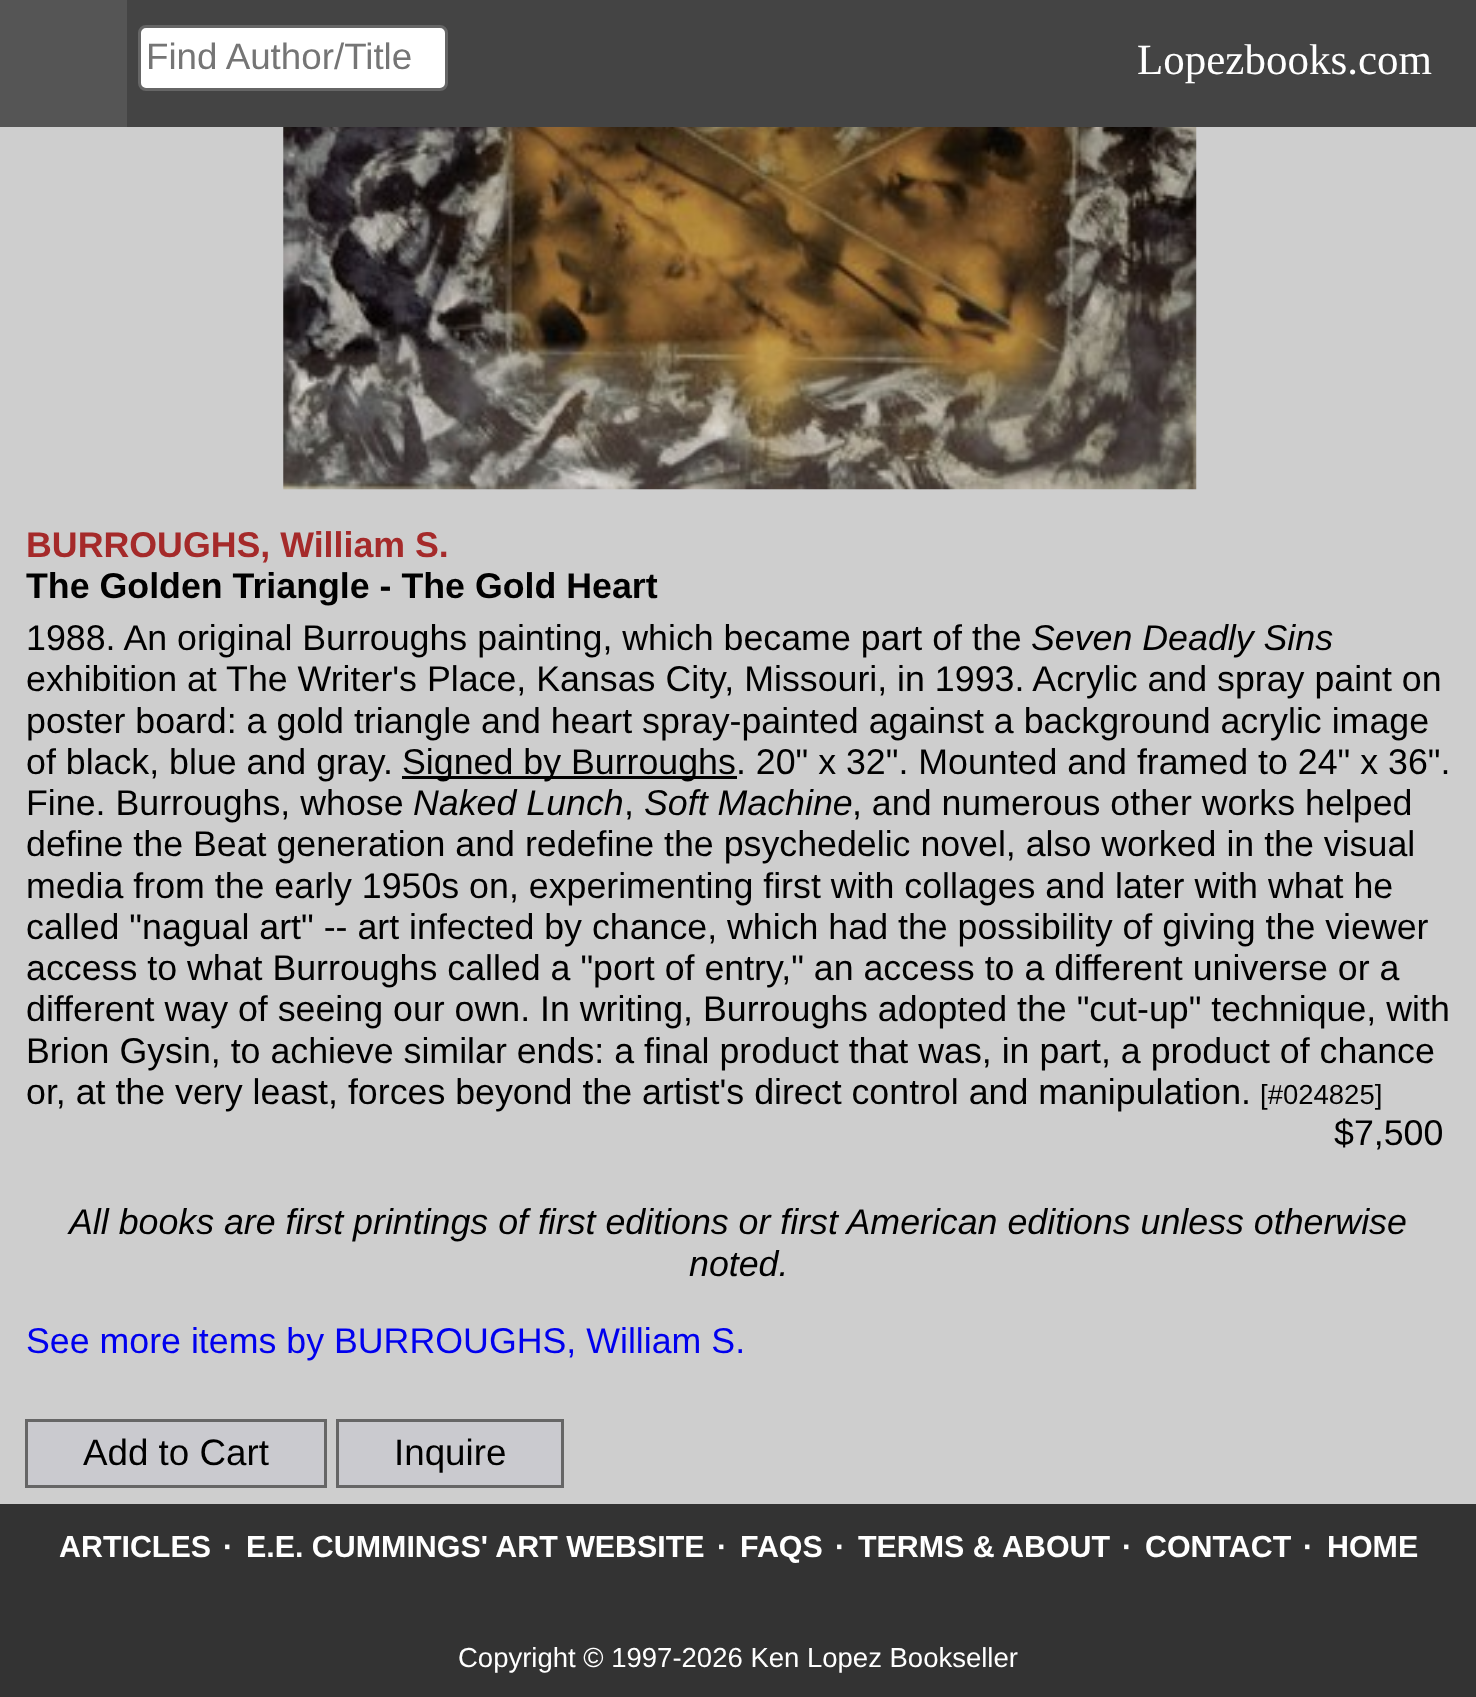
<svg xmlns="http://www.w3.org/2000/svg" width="1476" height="1697">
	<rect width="100%" height="100%" fill="#333333" />
	<rect x="127" y="0" width="1349" height="127" fill="#444444" />
	<rect x="0" y="0" width="127" height="127" fill="#555555" />
	<rect x="139.5" y="26.5" width="307" height="63" rx="6.5" fill="#FFFFFF" stroke="#666666" stroke-width="3" />
	<text x="146" y="69" font-family="Liberation Sans" font-size="36.75" fill="#757575">Find Author/Title</text>
	<text x="1137" y="74" font-family="Liberation Serif" font-size="43" fill="#FFFFFF">Lopezbooks.com</text>
	<rect x="0" y="127" width="1476" height="1377" fill="#CECECE" />
	<image x="283" y="127" width="914" height="363" href="assets/img1.png" />
	<text x="26" y="557" font-family="Liberation Sans" font-size="35.75" font-weight="700" fill="#A52A2A">BURROUGHS, William S.</text>
	<text x="26" y="598" font-family="Liberation Sans" font-size="35.75" font-weight="700" fill="#000000">The Golden Triangle - The Gold Heart</text>
	<text x="26" y="650" font-family="Liberation Sans" font-size="35.75" fill="#000000">1988. An original Burroughs painting, which became part of the</text>
	<text x="1031" y="650" font-family="Liberation Sans" font-size="35.75" font-style="italic" fill="#000000">Seven Deadly Sins</text>
	<g font-family="Liberation Sans" font-size="35.75" fill="#000000">
		<text x="26" y="691">exhibition at The Writer's Place, Kansas City, Missouri, in 1993. Acrylic and spray paint on</text>
		<text x="26" y="733">poster board: a gold triangle and heart spray-painted against a background acrylic image</text>
		<text x="26" y="774">of black, blue and gray.</text>
	</g>
	<rect x="402" y="776" width="335" height="3" fill="#000000" />
	<g font-family="Liberation Sans" font-size="35.75" fill="#000000">
		<text x="402" y="774">Signed by Burroughs. 20" x 32". Mounted and framed to 24" x 36".</text>
		<text x="26" y="815">Fine. Burroughs, whose</text>
	</g>
	<text x="413" y="815" font-family="Liberation Sans" font-size="35.75" font-style="italic" fill="#000000">Naked Lunch</text>
	<text x="624" y="815" font-family="Liberation Sans" font-size="35.75" fill="#000000">,</text>
	<text x="644" y="815" font-family="Liberation Sans" font-size="35.75" font-style="italic" fill="#000000">Soft Machine</text>
	<g font-family="Liberation Sans" font-size="35.75" fill="#000000">
		<text x="852" y="815">, and numerous other works helped</text>
		<text x="26" y="856">define the Beat generation and redefine the psychedelic novel, also worked in the visual</text>
		<text x="26" y="898">media from the early 1950s on, experimenting first with collages and later with what he</text>
		<text x="26" y="939">called "nagual art" -- art infected by chance, which had the possibility of giving the viewer</text>
		<text x="26" y="980">access to what Burroughs called a "port of entry," an access to a different universe or a</text>
		<text x="26" y="1021">different way of seeing our own. In writing, Burroughs adopted the "cut-up" technique, with</text>
		<text x="26" y="1063">Brion Gysin, to achieve similar ends: a final product that was, in part, a product of chance</text>
		<text x="26" y="1104">or, at the very least, forces beyond the artist's direct control and manipulation.</text>
	</g>
	<text x="1260" y="1104" font-family="Liberation Sans" font-size="27.5" fill="#000000">[#024825]</text>
	<text x="1334" y="1145" font-family="Liberation Sans" font-size="35.75" fill="#000000">$7,500</text>
	<g font-family="Liberation Sans" font-size="35.75" font-style="italic" fill="#000000">
		<text x="69" y="1234">All books are first printings of first editions or first American editions unless otherwise</text>
		<text x="689" y="1276">noted.</text>
	</g>
	<text x="26" y="1353" font-family="Liberation Sans" font-size="35.75" fill="#0000EE">See more items by BURROUGHS, William S.</text>
	<rect x="26.5" y="1420.5" width="299" height="66" fill="#CACACF" stroke="#666666" stroke-width="3" />
	<text x="83" y="1465" font-family="Liberation Sans" font-size="36.75" fill="#000000">Add to Cart</text>
	<rect x="337.5" y="1420.5" width="225" height="66" fill="#CACACF" stroke="#666666" stroke-width="3" />
	<text x="394" y="1465" font-family="Liberation Sans" font-size="36.75" fill="#000000">Inquire</text>
	<g font-family="Liberation Sans" font-size="30.4" font-weight="700" fill="#FFFFFF">
		<text x="59" y="1557">ARTICLES</text>
		<text x="223" y="1557">·</text>
		<text x="246" y="1557">E.E. CUMMINGS' ART WEBSITE</text>
		<text x="717" y="1557">·</text>
		<text x="740" y="1557">FAQS</text>
		<text x="835" y="1557">·</text>
		<text x="858" y="1557">TERMS &amp; ABOUT</text>
		<text x="1122" y="1557">·</text>
		<text x="1145" y="1557">CONTACT</text>
		<text x="1303" y="1557">·</text>
		<text x="1327" y="1557">HOME</text>
	</g>
	<text x="458" y="1667" font-family="Liberation Sans" font-size="27.5" fill="#FFFFFF">Copyright © 1997-2026 Ken Lopez Bookseller</text>
</svg>
